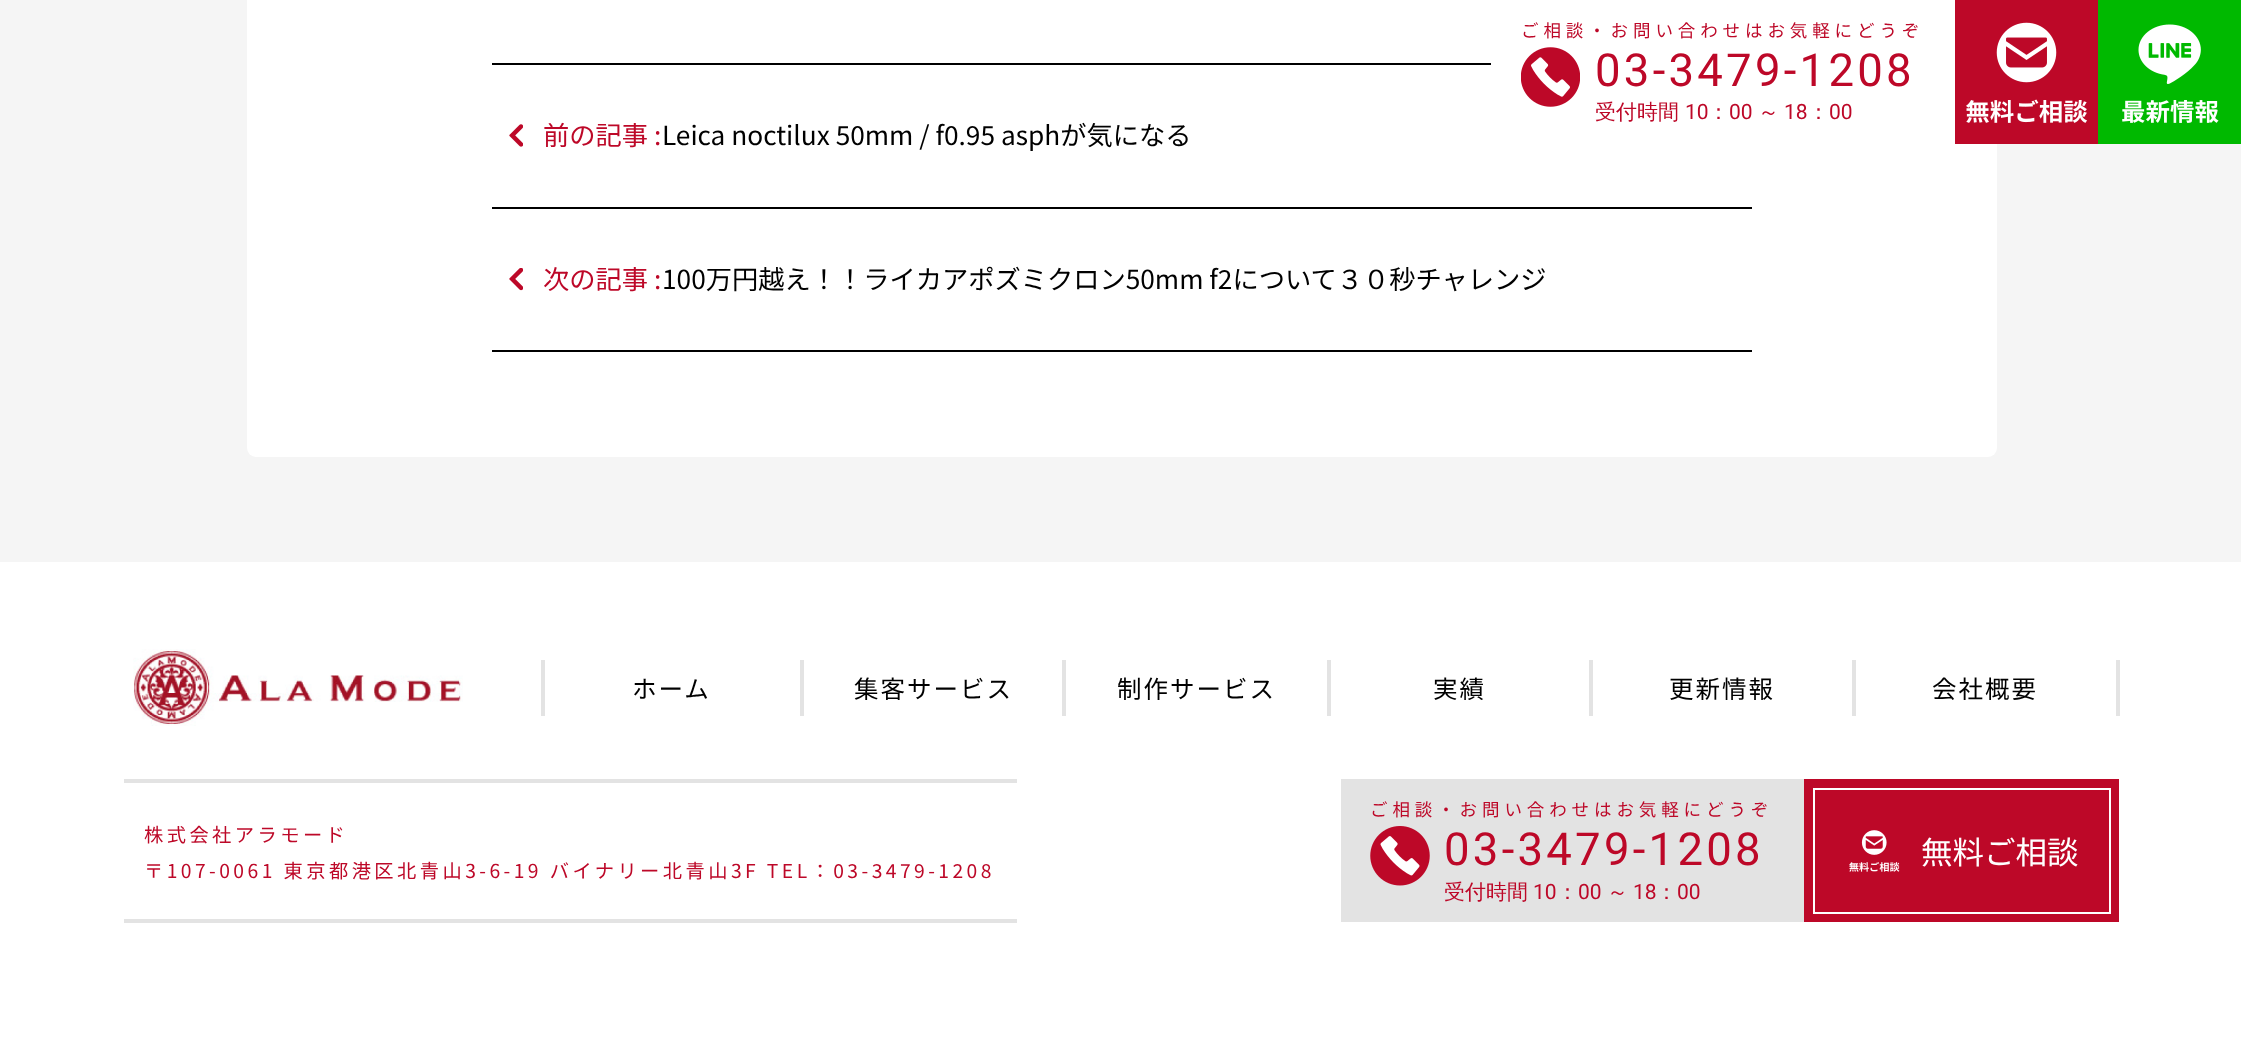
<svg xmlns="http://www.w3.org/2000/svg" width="2241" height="1044">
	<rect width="100%" height="100%" fill="#FFFFFF" />
	<rect x="0" y="0" width="2241" height="562" fill="#F5F5F5" />
	<rect x="247" y="-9" width="1750" height="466" rx="9" fill="#FFFFFF" />
	<text x="1521" y="37" font-family="Noto Sans JP" font-size="17.5" letter-spacing="4.9" fill="#BD0828">ご相談・お問い合わせはお気軽にどうぞ</text>
	<image x="1521" y="47" width="59" height="60" href="assets/img1.png" />
	<text x="1595" y="86" font-family="Roboto" font-size="45.5" letter-spacing="3.25" fill="#BD0828">03-3479-1208</text>
	<text x="1595" y="119" font-family="WenQuanYi Zen Hei" font-size="21" font-weight="500" fill="#BD0828">受付時間</text>
	<text x="1685" y="119" font-family="Roboto" font-size="21" fill="#BD0828">10</text>
	<text x="1708" y="119" font-family="WenQuanYi Zen Hei" font-size="21" font-weight="500" fill="#BD0828">：</text>
	<text x="1729" y="119" font-family="Roboto" font-size="21" fill="#BD0828">00</text>
	<text x="1758" y="119" font-family="WenQuanYi Zen Hei" font-size="21" font-weight="500" fill="#BD0828">～</text>
	<text x="1784" y="119" font-family="Roboto" font-size="21" fill="#BD0828">18</text>
	<text x="1808" y="119" font-family="WenQuanYi Zen Hei" font-size="21" font-weight="500" fill="#BD0828">：</text>
	<text x="1829" y="119" font-family="Roboto" font-size="21" fill="#BD0828">00</text>
	<image x="1955" y="0" width="143" height="144" href="assets/img2.png" />
	<image x="2098" y="0" width="143" height="144" href="assets/img3.png" />
	<rect x="492" y="63" width="999" height="2" fill="#000000" />
	<rect x="492" y="207" width="1260" height="2" fill="#000000" />
	<image x="509" y="124" width="14" height="23" href="assets/img4.png" />
	<text x="543" y="145" font-family="Noto Sans JP" font-size="26.25" fill="#BD0828">前の記事 :</text>
	<text x="662" y="145" font-family="Noto Sans JP" font-size="26.25" fill="#000000">Leica noctilux 50mm / f0.95 asphが気になる</text>
	<rect x="492" y="350" width="1260" height="2" fill="#000000" />
	<image x="509" y="268" width="14" height="23" href="assets/img5.png" />
	<text x="543" y="289" font-family="Noto Sans JP" font-size="26.25" fill="#BD0828">次の記事 :</text>
	<text x="662" y="289" font-family="Noto Sans JP" font-size="26.25" fill="#000000">100万円越え！！ライカアポズミクロン50mm f2について３０秒チャレンジ</text>
	<image x="133" y="649" width="330" height="77" href="assets/img6.png" />
	<rect x="800" y="660" width="4" height="56" fill="#E3E3E3" />
	<rect x="541" y="660" width="4" height="56" fill="#E3E3E3" />
	<text x="632" y="698" font-family="Noto Sans JP" font-size="24.5" letter-spacing="2" fill="#000000">ホーム</text>
	<rect x="1062" y="660" width="4" height="56" fill="#E3E3E3" />
	<text x="854" y="698" font-family="Noto Sans JP" font-size="24.5" letter-spacing="2" fill="#000000">集客サービス</text>
	<rect x="1327" y="660" width="4" height="56" fill="#E3E3E3" />
	<text x="1117" y="698" font-family="Noto Sans JP" font-size="24.5" letter-spacing="2" fill="#000000">制作サービス</text>
	<rect x="1589" y="660" width="4" height="56" fill="#E3E3E3" />
	<text x="1433" y="698" font-family="Noto Sans JP" font-size="24.5" letter-spacing="2" fill="#000000">実績</text>
	<rect x="1852" y="660" width="4" height="56" fill="#E3E3E3" />
	<text x="1669" y="698" font-family="Noto Sans JP" font-size="24.5" letter-spacing="2" fill="#000000">更新情報</text>
	<rect x="2116" y="660" width="4" height="56" fill="#E3E3E3" />
	<text x="1932" y="698" font-family="Noto Sans JP" font-size="24.5" letter-spacing="2" fill="#000000">会社概要</text>
	<rect x="124" y="779" width="893" height="4" fill="#E3E3E3" />
	<rect x="124" y="919" width="893" height="4" fill="#E3E3E3" />
	<g font-family="Noto Sans JP" font-size="19.25" letter-spacing="3.45" fill="#BD0828">
		<text x="144" y="842">株式会社アラモード</text>
		<text x="144" y="878">〒107-0061 東京都港区北青山3-6-19 バイナリー北青山3F TEL：03-3479-1208</text>
	</g>
	<rect x="1341" y="779" width="463" height="143" fill="#E3E3E3" />
	<text x="1370" y="816" font-family="Noto Sans JP" font-size="17.5" letter-spacing="4.9" fill="#BD0828">ご相談・お問い合わせはお気軽にどうぞ</text>
	<image x="1370" y="826" width="60" height="60" href="assets/img7.png" />
	<text x="1444" y="865" font-family="Roboto" font-size="45.5" letter-spacing="3.25" fill="#BD0828">03-3479-1208</text>
	<text x="1444" y="899" font-family="WenQuanYi Zen Hei" font-size="21" font-weight="500" fill="#BD0828">受付時間</text>
	<text x="1533" y="899" font-family="Roboto" font-size="21" fill="#BD0828">10</text>
	<text x="1557" y="899" font-family="WenQuanYi Zen Hei" font-size="21" font-weight="500" fill="#BD0828">：</text>
	<text x="1578" y="899" font-family="Roboto" font-size="21" fill="#BD0828">00</text>
	<text x="1607" y="899" font-family="WenQuanYi Zen Hei" font-size="21" font-weight="500" fill="#BD0828">～</text>
	<text x="1633" y="899" font-family="Roboto" font-size="21" fill="#BD0828">18</text>
	<text x="1656" y="899" font-family="WenQuanYi Zen Hei" font-size="21" font-weight="500" fill="#BD0828">：</text>
	<text x="1677" y="899" font-family="Roboto" font-size="21" fill="#BD0828">00</text>
	<rect x="1804" y="779" width="315" height="143" fill="#BD0828" />
	<image x="1849" y="830" width="51" height="42" href="assets/img8.png" />
	<rect x="1814" y="789" width="296" height="124" fill="none" stroke="#FFFFFF" stroke-width="2" />
	<text x="1921" y="864" font-family="Noto Sans JP" font-size="31.5" fill="#FFFFFF">無料ご相談</text>
</svg>
